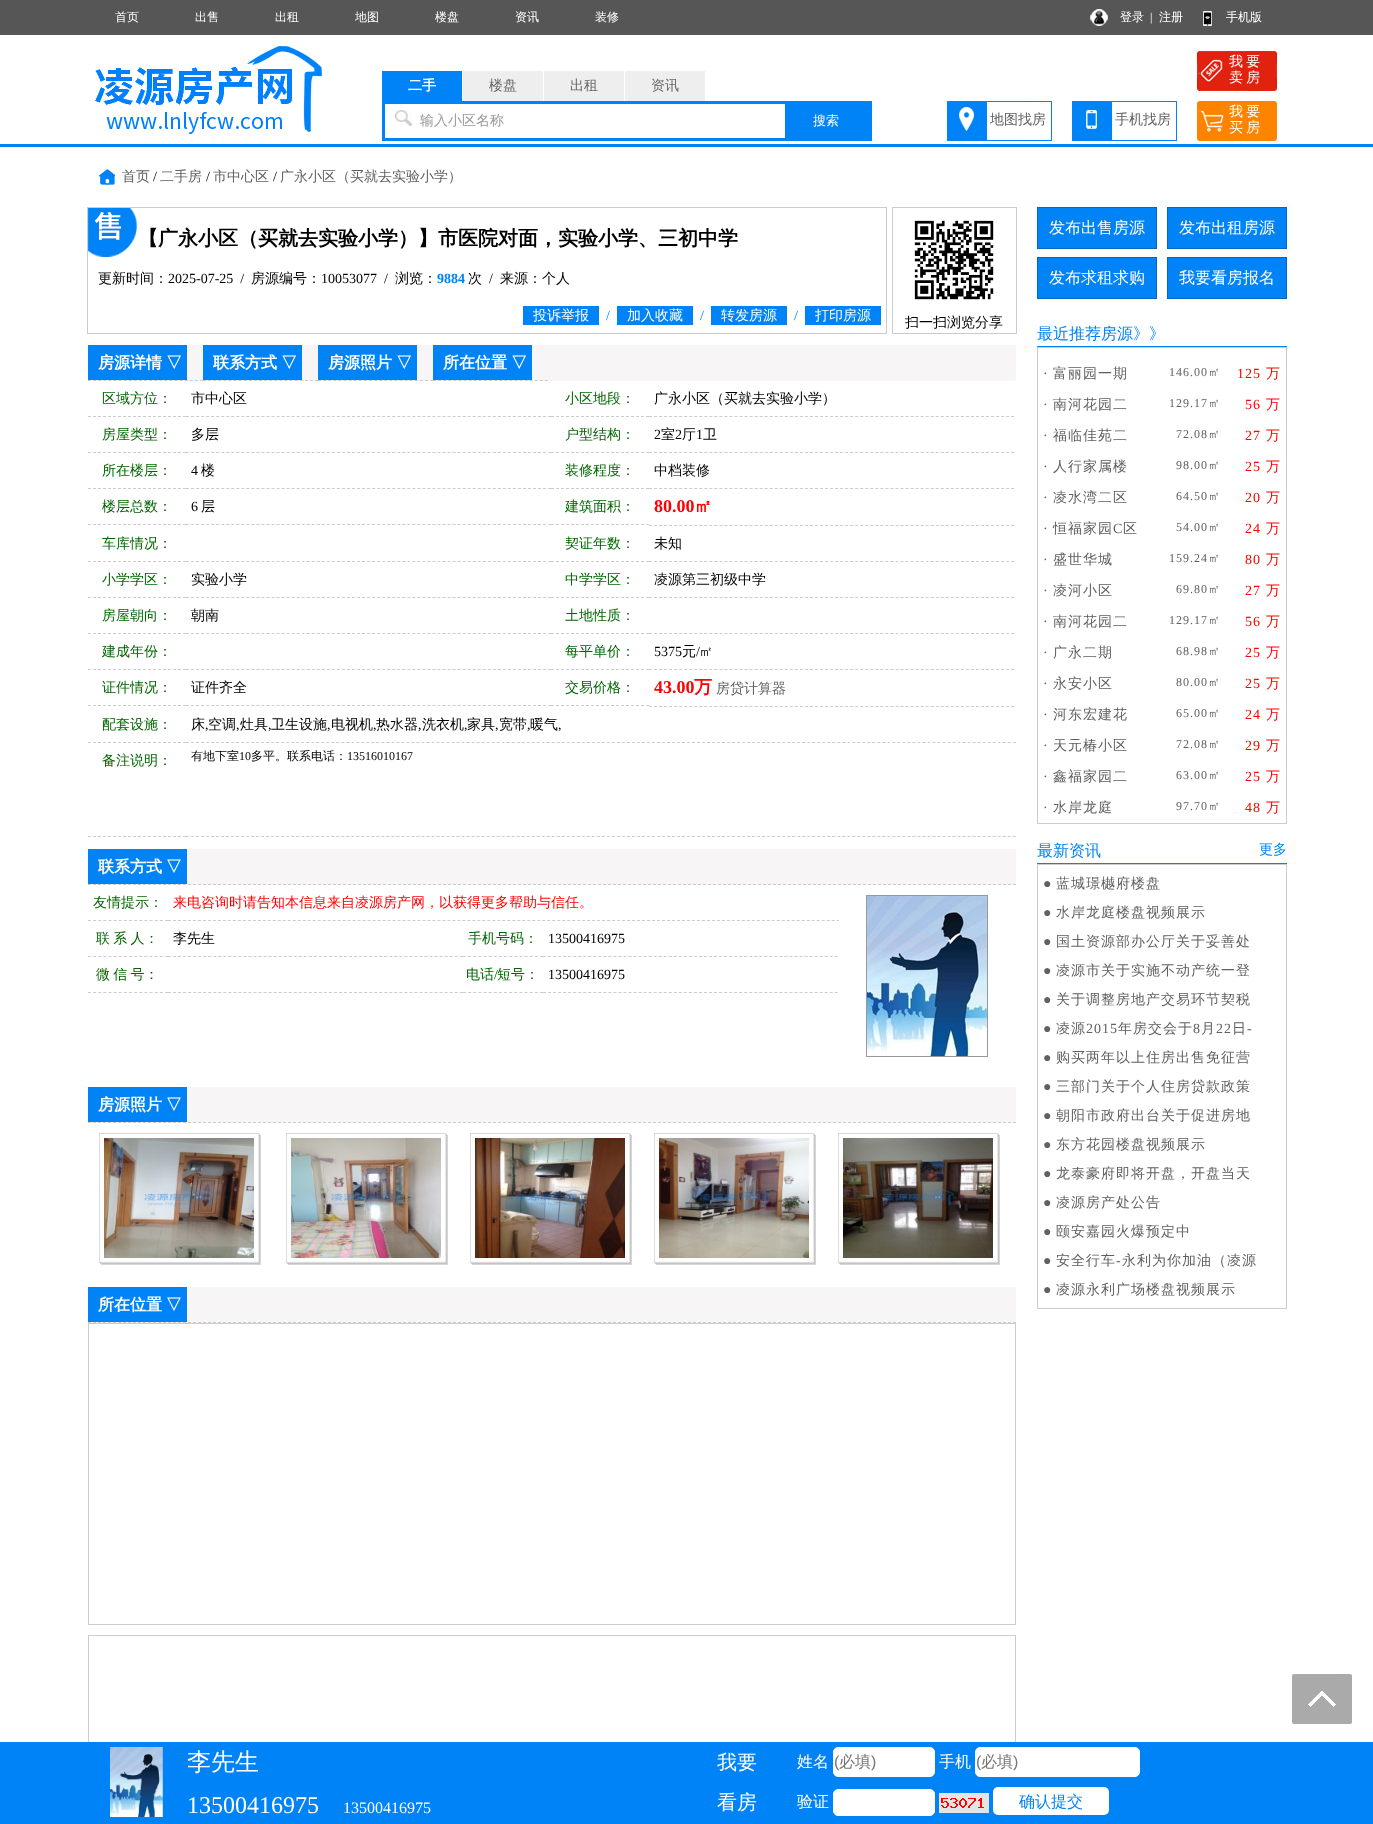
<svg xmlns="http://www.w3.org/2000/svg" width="1373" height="1824">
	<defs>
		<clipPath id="clip1"><rect x="797" y="1782" width="490" height="40" /></clipPath>
	</defs>
	<rect width="100%" height="100%" fill="#FFFFFF" />
	<rect x="0" y="0" width="1373" height="35" fill="#565656" />
	<g font-family="WenQuanYi Zen Hei" font-size="12" font-weight="500" fill="#FFFFFF">
		<text x="115" y="21">首页</text>
		<text x="195" y="21">出售</text>
		<text x="275" y="21">出租</text>
		<text x="355" y="21">地图</text>
		<text x="435" y="21">楼盘</text>
		<text x="515" y="21">资讯</text>
		<text x="595" y="21">装修</text>
	</g>
	<image x="1090" y="9" width="122" height="17" href="assets/img1.png" />
	<text x="1120" y="21" font-family="WenQuanYi Zen Hei" font-size="12" font-weight="500" fill="#FFFFFF">登录</text>
	<text x="1150" y="21" font-family="Liberation Serif" font-size="12" fill="#FFFFFF">|</text>
	<g font-family="WenQuanYi Zen Hei" font-size="12" font-weight="500" fill="#FFFFFF">
		<text x="1159" y="21">注册</text>
		<text x="1226" y="21">手机版</text>
	</g>
	<image x="95" y="46" width="227" height="88" href="assets/img2.png" />
	<rect x="382" y="71" width="80" height="30" fill="#0083F6" />
	<text x="408" y="90" font-family="WenQuanYi Zen Hei" font-size="14" font-weight="700" fill="#FFFFFF">二手</text>
	<rect x="463" y="71" width="80" height="30" fill="#EEEEEE" />
	<text x="489" y="90" font-family="WenQuanYi Zen Hei" font-size="14" font-weight="500" fill="#666666">楼盘</text>
	<rect x="544" y="71" width="80" height="30" fill="#EEEEEE" />
	<text x="570" y="90" font-family="WenQuanYi Zen Hei" font-size="14" font-weight="500" fill="#666666">出租</text>
	<rect x="625" y="71" width="80" height="30" fill="#EEEEEE" />
	<text x="651" y="90" font-family="WenQuanYi Zen Hei" font-size="14" font-weight="500" fill="#666666">资讯</text>
	<rect x="382" y="101" width="490" height="40" fill="#0083F6" />
	<rect x="385" y="104" width="400" height="34" fill="#FFFFFF" />
	<image x="395" y="110" width="17" height="16" href="assets/img3.png" />
	<text x="420" y="125" font-family="WenQuanYi Zen Hei" font-size="14" font-weight="500" fill="#999999">输入小区名称</text>
	<text x="813" y="125" font-family="WenQuanYi Zen Hei" font-size="13" font-weight="500" fill="#FFFFFF">搜索</text>
	<image x="1197" y="51" width="80" height="40" href="assets/img4.png" />
	<g font-family="WenQuanYi Zen Hei" font-size="14" font-weight="500" fill="#FFFFFF">
		<text x="1229" y="66" word-spacing="-1">我 要</text>
		<text x="1229" y="82" word-spacing="-1">卖 房</text>
	</g>
	<image x="947" y="101" width="105" height="40" href="assets/img5.png" />
	<text x="990" y="124" font-family="WenQuanYi Zen Hei" font-size="14" font-weight="500" fill="#606060">地图找房</text>
	<image x="1072" y="101" width="105" height="40" href="assets/img6.png" />
	<text x="1115" y="124" font-family="WenQuanYi Zen Hei" font-size="14" font-weight="500" fill="#606060">手机找房</text>
	<image x="1197" y="101" width="80" height="40" href="assets/img7.png" />
	<g font-family="WenQuanYi Zen Hei" font-size="14" font-weight="500" fill="#FFFFFF">
		<text x="1229" y="116" word-spacing="-1">我 要</text>
		<text x="1229" y="132" word-spacing="-1">买 房</text>
	</g>
	<rect x="0" y="144" width="1373" height="3" fill="#0083F6" />
	<image x="99" y="169" width="16" height="16" href="assets/img8.png" />
	<text x="122" y="181" font-family="WenQuanYi Zen Hei" font-size="14" font-weight="500" fill="#606060">首页</text>
	<text x="153" y="181" font-family="Liberation Serif" font-size="14" fill="#000000">/</text>
	<text x="160" y="181" font-family="WenQuanYi Zen Hei" font-size="14" font-weight="500" fill="#606060">二手房</text>
	<text x="206" y="181" font-family="Liberation Serif" font-size="14" fill="#000000">/</text>
	<text x="213" y="181" font-family="WenQuanYi Zen Hei" font-size="14" font-weight="500" fill="#606060">市中心区</text>
	<text x="273" y="181" font-family="Liberation Serif" font-size="14" fill="#000000">/</text>
	<text x="280" y="181" font-family="WenQuanYi Zen Hei" font-size="14" font-weight="500" fill="#606060">广永小区（买就去实验小学）</text>
	<image x="88" y="208" width="50" height="49" href="assets/img9.png" />
	<rect x="87.5" y="207.5" width="799" height="126" fill="none" stroke="#CCCCCC" />
	<text x="138" y="245" font-family="WenQuanYi Zen Hei" font-size="20" font-weight="700" fill="#000000">【广永小区（买就去实验小学）】市医院对面，实验小学、三初中学</text>
	<text x="98" y="283" font-family="WenQuanYi Zen Hei" font-size="14" font-weight="500" fill="#000000">更新时间：</text>
	<text x="168" y="283" font-family="Liberation Serif" font-size="14" fill="#000000" xml:space="preserve">2025-07-25  /</text>
	<text x="251" y="283" font-family="WenQuanYi Zen Hei" font-size="14" font-weight="500" fill="#000000">房源编号：</text>
	<text x="321" y="283" font-family="Liberation Serif" font-size="14" fill="#000000" xml:space="preserve">10053077  /</text>
	<text x="395" y="283" font-family="WenQuanYi Zen Hei" font-size="14" font-weight="500" fill="#000000">浏览：</text>
	<text x="437" y="283" font-family="Liberation Serif" font-size="14" font-weight="700" fill="#0083F6">9884</text>
	<text x="468" y="283" font-family="WenQuanYi Zen Hei" font-size="14" font-weight="500" fill="#000000">次</text>
	<text x="489" y="283" font-family="Liberation Serif" font-size="14" fill="#000000">/</text>
	<text x="500" y="283" font-family="WenQuanYi Zen Hei" font-size="14" font-weight="500" fill="#000000">来源：个人</text>
	<rect x="523" y="306" width="76" height="19" fill="#0083F6" />
	<text x="533" y="320" font-family="WenQuanYi Zen Hei" font-size="14" font-weight="500" fill="#FFFFFF">投诉举报</text>
	<text x="606" y="320" font-family="Liberation Serif" font-size="14" fill="#0083F6">/</text>
	<rect x="617" y="306" width="76" height="19" fill="#0083F6" />
	<text x="627" y="320" font-family="WenQuanYi Zen Hei" font-size="14" font-weight="500" fill="#FFFFFF">加入收藏</text>
	<text x="700" y="320" font-family="Liberation Serif" font-size="14" fill="#0083F6">/</text>
	<rect x="711" y="306" width="76" height="19" fill="#0083F6" />
	<text x="721" y="320" font-family="WenQuanYi Zen Hei" font-size="14" font-weight="500" fill="#FFFFFF">转发房源</text>
	<text x="794" y="320" font-family="Liberation Serif" font-size="14" fill="#0083F6">/</text>
	<rect x="805" y="306" width="76" height="19" fill="#0083F6" />
	<text x="815" y="320" font-family="WenQuanYi Zen Hei" font-size="14" font-weight="500" fill="#FFFFFF">打印房源</text>
	<rect x="892.5" y="207.5" width="124" height="126" fill="none" stroke="#CCCCCC" />
	<image x="914" y="220" width="80" height="80" href="assets/img10.png" />
	<text x="905" y="327" font-family="WenQuanYi Zen Hei" font-size="14" font-weight="500" fill="#000000">扫一扫浏览分享</text>
	<rect x="91" y="345" width="925" height="36" fill="#F7F5F5" />
	<rect x="88" y="345" width="99" height="35" fill="#0083F6" />
	<path d="M88 380.5H203" fill="none" stroke="#CCCCCC" stroke-dasharray="3 2.09" />
	<g font-family="WenQuanYi Zen Hei" font-size="16" font-weight="700" fill="#FFFFFF">
		<text x="98" y="368">房源详情</text>
		<text x="166" y="368">▽</text>
	</g>
	<rect x="203" y="345" width="99" height="35" fill="#0083F6" />
	<path d="M203 380.5H318" fill="none" stroke="#CCCCCC" stroke-dasharray="3 2.09" />
	<g font-family="WenQuanYi Zen Hei" font-size="16" font-weight="700" fill="#FFFFFF">
		<text x="213" y="368">联系方式</text>
		<text x="281" y="368">▽</text>
	</g>
	<rect x="318" y="345" width="99" height="35" fill="#0083F6" />
	<path d="M318 380.5H433" fill="none" stroke="#CCCCCC" stroke-dasharray="3 2.09" />
	<g font-family="WenQuanYi Zen Hei" font-size="16" font-weight="700" fill="#FFFFFF">
		<text x="328" y="368">房源照片</text>
		<text x="396" y="368">▽</text>
	</g>
	<rect x="433" y="345" width="99" height="35" fill="#0083F6" />
	<path d="M433 380.5H548" fill="none" stroke="#CCCCCC" stroke-dasharray="3 2.09" />
	<g font-family="WenQuanYi Zen Hei" font-size="16" font-weight="700" fill="#FFFFFF">
		<text x="443" y="368">所在位置</text>
		<text x="511" y="368">▽</text>
	</g>
	<path d="M88 416.5H186" fill="none" stroke="#CCCCCC" stroke-dasharray="3 2" />
	<text x="102" y="403" font-family="WenQuanYi Zen Hei" font-size="14" font-weight="500" fill="#006600">区域方位：</text>
	<path d="M186 416.5H551" fill="none" stroke="#CCCCCC" stroke-dasharray="3 2.03" />
	<text x="191" y="403" font-family="WenQuanYi Zen Hei" font-size="14" font-weight="500" fill="#000000">市中心区</text>
	<path d="M551 416.5H649" fill="none" stroke="#CCCCCC" stroke-dasharray="3 2" />
	<text x="565" y="403" font-family="WenQuanYi Zen Hei" font-size="14" font-weight="500" fill="#006600">小区地段：</text>
	<path d="M649 416.5H1014" fill="none" stroke="#CCCCCC" stroke-dasharray="3 2.03" />
	<text x="654" y="403" font-family="WenQuanYi Zen Hei" font-size="14" font-weight="500" fill="#000000">广永小区（买就去实验小学）</text>
	<path d="M88 452.5H186" fill="none" stroke="#CCCCCC" stroke-dasharray="3 2" />
	<text x="102" y="439" font-family="WenQuanYi Zen Hei" font-size="14" font-weight="500" fill="#006600">房屋类型：</text>
	<path d="M186 452.5H551" fill="none" stroke="#CCCCCC" stroke-dasharray="3 2.03" />
	<text x="191" y="439" font-family="WenQuanYi Zen Hei" font-size="14" font-weight="500" fill="#000000">多层</text>
	<path d="M551 452.5H649" fill="none" stroke="#CCCCCC" stroke-dasharray="3 2" />
	<text x="565" y="439" font-family="WenQuanYi Zen Hei" font-size="14" font-weight="500" fill="#006600">户型结构：</text>
	<path d="M649 452.5H1014" fill="none" stroke="#CCCCCC" stroke-dasharray="3 2.03" />
	<text x="654" y="439" font-family="Liberation Serif" font-size="14" fill="#000000">2</text>
	<text x="661" y="439" font-family="WenQuanYi Zen Hei" font-size="14" font-weight="500" fill="#000000">室</text>
	<text x="675" y="439" font-family="Liberation Serif" font-size="14" fill="#000000">2</text>
	<text x="682" y="439" font-family="WenQuanYi Zen Hei" font-size="14" font-weight="500" fill="#000000">厅</text>
	<text x="696" y="439" font-family="Liberation Serif" font-size="14" fill="#000000">1</text>
	<text x="703" y="439" font-family="WenQuanYi Zen Hei" font-size="14" font-weight="500" fill="#000000">卫</text>
	<path d="M88 488.5H186" fill="none" stroke="#CCCCCC" stroke-dasharray="3 2" />
	<text x="102" y="475" font-family="WenQuanYi Zen Hei" font-size="14" font-weight="500" fill="#006600">所在楼层：</text>
	<path d="M186 488.5H551" fill="none" stroke="#CCCCCC" stroke-dasharray="3 2.03" />
	<text x="191" y="475" font-family="Liberation Serif" font-size="14" fill="#000000">4</text>
	<text x="201" y="475" font-family="WenQuanYi Zen Hei" font-size="14" font-weight="500" fill="#000000">楼</text>
	<path d="M551 488.5H649" fill="none" stroke="#CCCCCC" stroke-dasharray="3 2" />
	<text x="565" y="475" font-family="WenQuanYi Zen Hei" font-size="14" font-weight="500" fill="#006600">装修程度：</text>
	<path d="M649 488.5H1014" fill="none" stroke="#CCCCCC" stroke-dasharray="3 2.03" />
	<text x="654" y="475" font-family="WenQuanYi Zen Hei" font-size="14" font-weight="500" fill="#000000">中档装修</text>
	<path d="M88 524.5H186" fill="none" stroke="#CCCCCC" stroke-dasharray="3 2" />
	<text x="102" y="511" font-family="WenQuanYi Zen Hei" font-size="14" font-weight="500" fill="#006600">楼层总数：</text>
	<path d="M186 524.5H551" fill="none" stroke="#CCCCCC" stroke-dasharray="3 2.03" />
	<text x="191" y="511" font-family="Liberation Serif" font-size="14" fill="#000000">6</text>
	<text x="201" y="511" font-family="WenQuanYi Zen Hei" font-size="14" font-weight="500" fill="#000000">层</text>
	<path d="M551 524.5H649" fill="none" stroke="#CCCCCC" stroke-dasharray="3 2" />
	<text x="565" y="511" font-family="WenQuanYi Zen Hei" font-size="14" font-weight="500" fill="#006600">建筑面积：</text>
	<path d="M649 525.5H1014" fill="none" stroke="#CCCCCC" stroke-dasharray="3 2.03" />
	<text x="654" y="512" font-family="Liberation Serif" font-size="18" font-weight="700" fill="#FF0000">80.00</text>
	<text x="694" y="512" font-family="WenQuanYi Zen Hei" font-size="18" font-weight="700" fill="#FF0000">㎡</text>
	<path d="M88 561.5H186" fill="none" stroke="#CCCCCC" stroke-dasharray="3 2" />
	<text x="102" y="548" font-family="WenQuanYi Zen Hei" font-size="14" font-weight="500" fill="#006600">车库情况：</text>
	<path d="M551 561.5H649" fill="none" stroke="#CCCCCC" stroke-dasharray="3 2" />
	<text x="565" y="548" font-family="WenQuanYi Zen Hei" font-size="14" font-weight="500" fill="#006600">契证年数：</text>
	<path d="M649 561.5H1014" fill="none" stroke="#CCCCCC" stroke-dasharray="3 2.03" />
	<text x="654" y="548" font-family="WenQuanYi Zen Hei" font-size="14" font-weight="500" fill="#000000">未知</text>
	<path d="M186 561.5H551" fill="none" stroke="#CCCCCC" stroke-dasharray="3 2.03" />
	<path d="M88 597.5H186" fill="none" stroke="#CCCCCC" stroke-dasharray="3 2" />
	<text x="102" y="584" font-family="WenQuanYi Zen Hei" font-size="14" font-weight="500" fill="#006600">小学学区：</text>
	<path d="M186 597.5H551" fill="none" stroke="#CCCCCC" stroke-dasharray="3 2.03" />
	<text x="191" y="584" font-family="WenQuanYi Zen Hei" font-size="14" font-weight="500" fill="#000000">实验小学</text>
	<path d="M551 597.5H649" fill="none" stroke="#CCCCCC" stroke-dasharray="3 2" />
	<text x="565" y="584" font-family="WenQuanYi Zen Hei" font-size="14" font-weight="500" fill="#006600">中学学区：</text>
	<path d="M649 597.5H1014" fill="none" stroke="#CCCCCC" stroke-dasharray="3 2.03" />
	<text x="654" y="584" font-family="WenQuanYi Zen Hei" font-size="14" font-weight="500" fill="#000000">凌源第三初级中学</text>
	<path d="M88 633.5H186" fill="none" stroke="#CCCCCC" stroke-dasharray="3 2" />
	<text x="102" y="620" font-family="WenQuanYi Zen Hei" font-size="14" font-weight="500" fill="#006600">房屋朝向：</text>
	<path d="M186 633.5H551" fill="none" stroke="#CCCCCC" stroke-dasharray="3 2.03" />
	<text x="191" y="620" font-family="WenQuanYi Zen Hei" font-size="14" font-weight="500" fill="#000000">朝南</text>
	<path d="M551 633.5H649" fill="none" stroke="#CCCCCC" stroke-dasharray="3 2" />
	<text x="565" y="620" font-family="WenQuanYi Zen Hei" font-size="14" font-weight="500" fill="#006600">土地性质：</text>
	<path d="M649 633.5H1014" fill="none" stroke="#CCCCCC" stroke-dasharray="3 2.03" />
	<path d="M88 669.5H186" fill="none" stroke="#CCCCCC" stroke-dasharray="3 2" />
	<text x="102" y="656" font-family="WenQuanYi Zen Hei" font-size="14" font-weight="500" fill="#006600">建成年份：</text>
	<path d="M551 669.5H649" fill="none" stroke="#CCCCCC" stroke-dasharray="3 2" />
	<text x="565" y="656" font-family="WenQuanYi Zen Hei" font-size="14" font-weight="500" fill="#006600">每平单价：</text>
	<path d="M649 669.5H1014" fill="none" stroke="#CCCCCC" stroke-dasharray="3 2.03" />
	<text x="654" y="656" font-family="Liberation Serif" font-size="14" fill="#000000">5375</text>
	<text x="682" y="656" font-family="WenQuanYi Zen Hei" font-size="14" font-weight="500" fill="#000000">元</text>
	<text x="696" y="656" font-family="Liberation Serif" font-size="14" fill="#000000">/</text>
	<text x="699" y="656" font-family="WenQuanYi Zen Hei" font-size="14" font-weight="500" fill="#000000">㎡</text>
	<path d="M186 669.5H551" fill="none" stroke="#CCCCCC" stroke-dasharray="3 2.03" />
	<path d="M88 705.5H186" fill="none" stroke="#CCCCCC" stroke-dasharray="3 2" />
	<text x="102" y="692" font-family="WenQuanYi Zen Hei" font-size="14" font-weight="500" fill="#006600">证件情况：</text>
	<path d="M186 705.5H551" fill="none" stroke="#CCCCCC" stroke-dasharray="3 2.03" />
	<text x="191" y="692" font-family="WenQuanYi Zen Hei" font-size="14" font-weight="500" fill="#000000">证件齐全</text>
	<path d="M551 705.5H649" fill="none" stroke="#CCCCCC" stroke-dasharray="3 2" />
	<text x="565" y="692" font-family="WenQuanYi Zen Hei" font-size="14" font-weight="500" fill="#006600">交易价格：</text>
	<path d="M649 706.5H1014" fill="none" stroke="#CCCCCC" stroke-dasharray="3 2.03" />
	<text x="654" y="693" font-family="Liberation Serif" font-size="18" font-weight="700" fill="#FF0000">43.00</text>
	<text x="694" y="693" font-family="WenQuanYi Zen Hei" font-size="18" font-weight="700" fill="#FF0000">万</text>
	<text x="716" y="693" font-family="WenQuanYi Zen Hei" font-size="14" font-weight="500" fill="#606060">房贷计算器</text>
	<path d="M88 742.5H186" fill="none" stroke="#CCCCCC" stroke-dasharray="3 2" />
	<text x="102" y="729" font-family="WenQuanYi Zen Hei" font-size="14" font-weight="500" fill="#006600">配套设施：</text>
	<path d="M186 742.5H1016" fill="none" stroke="#CCCCCC" stroke-dasharray="3 2.01" />
	<text x="191" y="729" font-family="WenQuanYi Zen Hei" font-size="14" font-weight="500" fill="#000000">床</text>
	<text x="205" y="729" font-family="Liberation Serif" font-size="14" fill="#000000">,</text>
	<text x="208" y="729" font-family="WenQuanYi Zen Hei" font-size="14" font-weight="500" fill="#000000">空调</text>
	<text x="236" y="729" font-family="Liberation Serif" font-size="14" fill="#000000">,</text>
	<text x="240" y="729" font-family="WenQuanYi Zen Hei" font-size="14" font-weight="500" fill="#000000">灶具</text>
	<text x="268" y="729" font-family="Liberation Serif" font-size="14" fill="#000000">,</text>
	<text x="271" y="729" font-family="WenQuanYi Zen Hei" font-size="14" font-weight="500" fill="#000000">卫生设施</text>
	<text x="327" y="729" font-family="Liberation Serif" font-size="14" fill="#000000">,</text>
	<text x="331" y="729" font-family="WenQuanYi Zen Hei" font-size="14" font-weight="500" fill="#000000">电视机</text>
	<text x="373" y="729" font-family="Liberation Serif" font-size="14" fill="#000000">,</text>
	<text x="376" y="729" font-family="WenQuanYi Zen Hei" font-size="14" font-weight="500" fill="#000000">热水器</text>
	<text x="418" y="729" font-family="Liberation Serif" font-size="14" fill="#000000">,</text>
	<text x="422" y="729" font-family="WenQuanYi Zen Hei" font-size="14" font-weight="500" fill="#000000">洗衣机</text>
	<text x="464" y="729" font-family="Liberation Serif" font-size="14" fill="#000000">,</text>
	<text x="467" y="729" font-family="WenQuanYi Zen Hei" font-size="14" font-weight="500" fill="#000000">家具</text>
	<text x="495" y="729" font-family="Liberation Serif" font-size="14" fill="#000000">,</text>
	<text x="499" y="729" font-family="WenQuanYi Zen Hei" font-size="14" font-weight="500" fill="#000000">宽带</text>
	<text x="527" y="729" font-family="Liberation Serif" font-size="14" fill="#000000">,</text>
	<text x="530" y="729" font-family="WenQuanYi Zen Hei" font-size="14" font-weight="500" fill="#000000">暖气</text>
	<text x="558" y="729" font-family="Liberation Serif" font-size="14" fill="#000000">,</text>
	<path d="M88 836.5H186" fill="none" stroke="#CCCCCC" stroke-dasharray="3 2" />
	<text x="102" y="765" font-family="WenQuanYi Zen Hei" font-size="14" font-weight="500" fill="#006600">备注说明：</text>
	<path d="M186 836.5H1016" fill="none" stroke="#CCCCCC" stroke-dasharray="3 2.01" />
	<text x="191" y="760" font-family="WenQuanYi Zen Hei" font-size="12" font-weight="500" fill="#000000">有地下室</text>
	<text x="239" y="760" font-family="Liberation Serif" font-size="12" fill="#000000">10</text>
	<text x="251" y="760" font-family="WenQuanYi Zen Hei" font-size="12" font-weight="500" fill="#000000">多平。联系电话：</text>
	<text x="347" y="760" font-family="Liberation Serif" font-size="12" fill="#000000">13516010167</text>
	<rect x="91" y="849" width="925" height="36" fill="#F7F5F5" />
	<rect x="88" y="849" width="99" height="35" fill="#0083F6" />
	<path d="M88 884.5H1016" fill="none" stroke="#CCCCCC" stroke-dasharray="3 2" />
	<text x="98" y="872" word-spacing="-1" font-family="WenQuanYi Zen Hei" font-size="16" font-weight="700" fill="#FFFFFF">联系方式 ▽</text>
	<path d="M88 920.5H168" fill="none" stroke="#CCCCCC" stroke-dasharray="3 2.13" />
	<text x="93" y="907" font-family="WenQuanYi Zen Hei" font-size="14" font-weight="500" fill="#006600">友情提示：</text>
	<path d="M168 920.5H839" fill="none" stroke="#CCCCCC" stroke-dasharray="3 1.99" />
	<text x="173" y="907" font-family="WenQuanYi Zen Hei" font-size="14" font-weight="500" fill="#FF0000">来电咨询时请告知本信息来自凌源房产网，以获得更多帮助与信任。</text>
	<path d="M88 956.5H168" fill="none" stroke="#CCCCCC" stroke-dasharray="3 2.13" />
	<text x="96" y="943" word-spacing="-1" font-family="WenQuanYi Zen Hei" font-size="14" font-weight="500" fill="#006600">联 系 人：</text>
	<path d="M168 956.5H463" fill="none" stroke="#CCCCCC" stroke-dasharray="3 2.03" />
	<text x="173" y="943" font-family="WenQuanYi Zen Hei" font-size="14" font-weight="500" fill="#000000">李先生</text>
	<path d="M463 956.5H543" fill="none" stroke="#CCCCCC" stroke-dasharray="3 2.13" />
	<text x="468" y="943" font-family="WenQuanYi Zen Hei" font-size="14" font-weight="500" fill="#006600">手机号码：</text>
	<path d="M543 956.5H838" fill="none" stroke="#CCCCCC" stroke-dasharray="3 2.03" />
	<text x="548" y="943" font-family="Liberation Serif" font-size="14" fill="#000000">13500416975</text>
	<path d="M88 992.5H168" fill="none" stroke="#CCCCCC" stroke-dasharray="3 2.13" />
	<text x="96" y="979" word-spacing="-1" font-family="WenQuanYi Zen Hei" font-size="14" font-weight="500" fill="#006600">微 信 号：</text>
	<path d="M463 992.5H543" fill="none" stroke="#CCCCCC" stroke-dasharray="3 2.13" />
	<text x="466" y="979" font-family="WenQuanYi Zen Hei" font-size="14" font-weight="500" fill="#006600">电话</text>
	<text x="494" y="979" font-family="Liberation Serif" font-size="14" fill="#006600">/</text>
	<text x="497" y="979" font-family="WenQuanYi Zen Hei" font-size="14" font-weight="500" fill="#006600">短号：</text>
	<path d="M543 992.5H838" fill="none" stroke="#CCCCCC" stroke-dasharray="3 2.03" />
	<text x="548" y="979" font-family="Liberation Serif" font-size="14" fill="#000000">13500416975</text>
	<path d="M168 992.5H463" fill="none" stroke="#CCCCCC" stroke-dasharray="3 2.03" />
	<rect x="866.5" y="895.5" width="121" height="161" fill="none" stroke="#999999" />
	<image x="867" y="896" width="120" height="160" href="assets/img11.png" />
	<rect x="91" y="1087" width="925" height="36" fill="#F7F5F5" />
	<rect x="88" y="1087" width="99" height="35" fill="#0083F6" />
	<path d="M88 1122.5H1016" fill="none" stroke="#CCCCCC" stroke-dasharray="3 2" />
	<text x="98" y="1110" word-spacing="-1" font-family="WenQuanYi Zen Hei" font-size="16" font-weight="700" fill="#FFFFFF">房源照片 ▽</text>
	<image x="99" y="1133" width="162" height="132" href="assets/img12.png" />
	<image x="286" y="1133" width="162" height="132" href="assets/img13.png" />
	<image x="470" y="1133" width="162" height="132" href="assets/img14.png" />
	<image x="654" y="1133" width="162" height="132" href="assets/img15.png" />
	<image x="838" y="1133" width="162" height="132" href="assets/img16.png" />
	<rect x="91" y="1287" width="925" height="36" fill="#F7F5F5" />
	<rect x="88" y="1287" width="99" height="35" fill="#0083F6" />
	<path d="M88 1322.5H1016" fill="none" stroke="#CCCCCC" stroke-dasharray="3 2" />
	<text x="98" y="1310" word-spacing="-1" font-family="WenQuanYi Zen Hei" font-size="16" font-weight="700" fill="#FFFFFF">所在位置 ▽</text>
	<rect x="88.5" y="1323.5" width="927" height="301" fill="none" stroke="#CCCCCC" />
	<rect x="88.5" y="1635.5" width="927" height="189" fill="none" stroke="#CCCCCC" />
	<rect x="1037.5" y="207.5" width="119" height="41" fill="#0083F6" stroke="#0067C3" />
	<text x="1049" y="233" font-family="WenQuanYi Zen Hei" font-size="16" font-weight="500" fill="#FFFFFF">发布出售房源</text>
	<rect x="1167.5" y="207.5" width="119" height="41" fill="#0083F6" stroke="#0067C3" />
	<text x="1179" y="233" font-family="WenQuanYi Zen Hei" font-size="16" font-weight="500" fill="#FFFFFF">发布出租房源</text>
	<rect x="1037.5" y="257.5" width="119" height="41" fill="#0083F6" stroke="#0067C3" />
	<text x="1049" y="283" font-family="WenQuanYi Zen Hei" font-size="16" font-weight="500" fill="#FFFFFF">发布求租求购</text>
	<rect x="1167.5" y="257.5" width="119" height="41" fill="#0083F6" stroke="#0067C3" />
	<text x="1179" y="283" font-family="WenQuanYi Zen Hei" font-size="16" font-weight="500" fill="#FFFFFF">我要看房报名</text>
	<rect x="1037" y="346" width="250" height="1" fill="#0083F6" />
	<text x="1037" y="339" font-family="WenQuanYi Zen Hei" font-size="16" font-weight="500" fill="#0083F6">最近推荐房源》》</text>
	<rect x="1037.5" y="347.5" width="249" height="476" fill="none" stroke="#CCCCCC" />
	<text x="1043" y="378" font-family="Liberation Serif" font-size="14" letter-spacing="1" fill="#606060">·</text>
	<text x="1053" y="378" font-family="WenQuanYi Zen Hei" font-size="14" font-weight="500" letter-spacing="1" fill="#606060">富丽园一期</text>
	<text x="1169" y="376" font-family="Liberation Serif" font-size="12" letter-spacing="1" fill="#606060">146.00</text>
	<text x="1208" y="376" font-family="WenQuanYi Zen Hei" font-size="12" font-weight="500" letter-spacing="1" fill="#606060">㎡</text>
	<text x="1237" y="378" font-family="Liberation Serif" font-size="14" letter-spacing="1" fill="#FF0000">125</text>
	<text x="1266" y="378" font-family="WenQuanYi Zen Hei" font-size="14" font-weight="500" letter-spacing="1" fill="#FF0000">万</text>
	<text x="1043" y="409" font-family="Liberation Serif" font-size="14" letter-spacing="1" fill="#606060">·</text>
	<text x="1053" y="409" font-family="WenQuanYi Zen Hei" font-size="14" font-weight="500" letter-spacing="1" fill="#606060">南河花园二</text>
	<text x="1169" y="407" font-family="Liberation Serif" font-size="12" letter-spacing="1" fill="#606060">129.17</text>
	<text x="1208" y="407" font-family="WenQuanYi Zen Hei" font-size="12" font-weight="500" letter-spacing="1" fill="#606060">㎡</text>
	<text x="1245" y="409" font-family="Liberation Serif" font-size="14" letter-spacing="1" fill="#FF0000">56</text>
	<text x="1266" y="409" font-family="WenQuanYi Zen Hei" font-size="14" font-weight="500" letter-spacing="1" fill="#FF0000">万</text>
	<text x="1043" y="440" font-family="Liberation Serif" font-size="14" letter-spacing="1" fill="#606060">·</text>
	<text x="1053" y="440" font-family="WenQuanYi Zen Hei" font-size="14" font-weight="500" letter-spacing="1" fill="#606060">福临佳苑二</text>
	<text x="1176" y="438" font-family="Liberation Serif" font-size="12" letter-spacing="1" fill="#606060">72.08</text>
	<text x="1208" y="438" font-family="WenQuanYi Zen Hei" font-size="12" font-weight="500" letter-spacing="1" fill="#606060">㎡</text>
	<text x="1245" y="440" font-family="Liberation Serif" font-size="14" letter-spacing="1" fill="#FF0000">27</text>
	<text x="1266" y="440" font-family="WenQuanYi Zen Hei" font-size="14" font-weight="500" letter-spacing="1" fill="#FF0000">万</text>
	<text x="1043" y="471" font-family="Liberation Serif" font-size="14" letter-spacing="1" fill="#606060">·</text>
	<text x="1053" y="471" font-family="WenQuanYi Zen Hei" font-size="14" font-weight="500" letter-spacing="1" fill="#606060">人行家属楼</text>
	<text x="1176" y="469" font-family="Liberation Serif" font-size="12" letter-spacing="1" fill="#606060">98.00</text>
	<text x="1208" y="469" font-family="WenQuanYi Zen Hei" font-size="12" font-weight="500" letter-spacing="1" fill="#606060">㎡</text>
	<text x="1245" y="471" font-family="Liberation Serif" font-size="14" letter-spacing="1" fill="#FF0000">25</text>
	<text x="1266" y="471" font-family="WenQuanYi Zen Hei" font-size="14" font-weight="500" letter-spacing="1" fill="#FF0000">万</text>
	<text x="1043" y="502" font-family="Liberation Serif" font-size="14" letter-spacing="1" fill="#606060">·</text>
	<text x="1053" y="502" font-family="WenQuanYi Zen Hei" font-size="14" font-weight="500" letter-spacing="1" fill="#606060">凌水湾二区</text>
	<text x="1176" y="500" font-family="Liberation Serif" font-size="12" letter-spacing="1" fill="#606060">64.50</text>
	<text x="1208" y="500" font-family="WenQuanYi Zen Hei" font-size="12" font-weight="500" letter-spacing="1" fill="#606060">㎡</text>
	<text x="1245" y="502" font-family="Liberation Serif" font-size="14" letter-spacing="1" fill="#FF0000">20</text>
	<text x="1266" y="502" font-family="WenQuanYi Zen Hei" font-size="14" font-weight="500" letter-spacing="1" fill="#FF0000">万</text>
	<text x="1043" y="533" font-family="Liberation Serif" font-size="14" letter-spacing="1" fill="#606060">·</text>
	<text x="1053" y="533" font-family="WenQuanYi Zen Hei" font-size="14" font-weight="500" letter-spacing="1" fill="#606060">恒福家园</text>
	<text x="1113" y="533" font-family="Liberation Serif" font-size="14" letter-spacing="1" fill="#606060">C</text>
	<text x="1123" y="533" font-family="WenQuanYi Zen Hei" font-size="14" font-weight="500" letter-spacing="1" fill="#606060">区</text>
	<text x="1176" y="531" font-family="Liberation Serif" font-size="12" letter-spacing="1" fill="#606060">54.00</text>
	<text x="1208" y="531" font-family="WenQuanYi Zen Hei" font-size="12" font-weight="500" letter-spacing="1" fill="#606060">㎡</text>
	<text x="1245" y="533" font-family="Liberation Serif" font-size="14" letter-spacing="1" fill="#FF0000">24</text>
	<text x="1266" y="533" font-family="WenQuanYi Zen Hei" font-size="14" font-weight="500" letter-spacing="1" fill="#FF0000">万</text>
	<text x="1043" y="564" font-family="Liberation Serif" font-size="14" letter-spacing="1" fill="#606060">·</text>
	<text x="1053" y="564" font-family="WenQuanYi Zen Hei" font-size="14" font-weight="500" letter-spacing="1" fill="#606060">盛世华城</text>
	<text x="1169" y="562" font-family="Liberation Serif" font-size="12" letter-spacing="1" fill="#606060">159.24</text>
	<text x="1208" y="562" font-family="WenQuanYi Zen Hei" font-size="12" font-weight="500" letter-spacing="1" fill="#606060">㎡</text>
	<text x="1245" y="564" font-family="Liberation Serif" font-size="14" letter-spacing="1" fill="#FF0000">80</text>
	<text x="1266" y="564" font-family="WenQuanYi Zen Hei" font-size="14" font-weight="500" letter-spacing="1" fill="#FF0000">万</text>
	<text x="1043" y="595" font-family="Liberation Serif" font-size="14" letter-spacing="1" fill="#606060">·</text>
	<text x="1053" y="595" font-family="WenQuanYi Zen Hei" font-size="14" font-weight="500" letter-spacing="1" fill="#606060">凌河小区</text>
	<text x="1176" y="593" font-family="Liberation Serif" font-size="12" letter-spacing="1" fill="#606060">69.80</text>
	<text x="1208" y="593" font-family="WenQuanYi Zen Hei" font-size="12" font-weight="500" letter-spacing="1" fill="#606060">㎡</text>
	<text x="1245" y="595" font-family="Liberation Serif" font-size="14" letter-spacing="1" fill="#FF0000">27</text>
	<text x="1266" y="595" font-family="WenQuanYi Zen Hei" font-size="14" font-weight="500" letter-spacing="1" fill="#FF0000">万</text>
	<text x="1043" y="626" font-family="Liberation Serif" font-size="14" letter-spacing="1" fill="#606060">·</text>
	<text x="1053" y="626" font-family="WenQuanYi Zen Hei" font-size="14" font-weight="500" letter-spacing="1" fill="#606060">南河花园二</text>
	<text x="1169" y="624" font-family="Liberation Serif" font-size="12" letter-spacing="1" fill="#606060">129.17</text>
	<text x="1208" y="624" font-family="WenQuanYi Zen Hei" font-size="12" font-weight="500" letter-spacing="1" fill="#606060">㎡</text>
	<text x="1245" y="626" font-family="Liberation Serif" font-size="14" letter-spacing="1" fill="#FF0000">56</text>
	<text x="1266" y="626" font-family="WenQuanYi Zen Hei" font-size="14" font-weight="500" letter-spacing="1" fill="#FF0000">万</text>
	<text x="1043" y="657" font-family="Liberation Serif" font-size="14" letter-spacing="1" fill="#606060">·</text>
	<text x="1053" y="657" font-family="WenQuanYi Zen Hei" font-size="14" font-weight="500" letter-spacing="1" fill="#606060">广永二期</text>
	<text x="1176" y="655" font-family="Liberation Serif" font-size="12" letter-spacing="1" fill="#606060">68.98</text>
	<text x="1208" y="655" font-family="WenQuanYi Zen Hei" font-size="12" font-weight="500" letter-spacing="1" fill="#606060">㎡</text>
	<text x="1245" y="657" font-family="Liberation Serif" font-size="14" letter-spacing="1" fill="#FF0000">25</text>
	<text x="1266" y="657" font-family="WenQuanYi Zen Hei" font-size="14" font-weight="500" letter-spacing="1" fill="#FF0000">万</text>
	<text x="1043" y="688" font-family="Liberation Serif" font-size="14" letter-spacing="1" fill="#606060">·</text>
	<text x="1053" y="688" font-family="WenQuanYi Zen Hei" font-size="14" font-weight="500" letter-spacing="1" fill="#606060">永安小区</text>
	<text x="1176" y="686" font-family="Liberation Serif" font-size="12" letter-spacing="1" fill="#606060">80.00</text>
	<text x="1208" y="686" font-family="WenQuanYi Zen Hei" font-size="12" font-weight="500" letter-spacing="1" fill="#606060">㎡</text>
	<text x="1245" y="688" font-family="Liberation Serif" font-size="14" letter-spacing="1" fill="#FF0000">25</text>
	<text x="1266" y="688" font-family="WenQuanYi Zen Hei" font-size="14" font-weight="500" letter-spacing="1" fill="#FF0000">万</text>
	<text x="1043" y="719" font-family="Liberation Serif" font-size="14" letter-spacing="1" fill="#606060">·</text>
	<text x="1053" y="719" font-family="WenQuanYi Zen Hei" font-size="14" font-weight="500" letter-spacing="1" fill="#606060">河东宏建花</text>
	<text x="1176" y="717" font-family="Liberation Serif" font-size="12" letter-spacing="1" fill="#606060">65.00</text>
	<text x="1208" y="717" font-family="WenQuanYi Zen Hei" font-size="12" font-weight="500" letter-spacing="1" fill="#606060">㎡</text>
	<text x="1245" y="719" font-family="Liberation Serif" font-size="14" letter-spacing="1" fill="#FF0000">24</text>
	<text x="1266" y="719" font-family="WenQuanYi Zen Hei" font-size="14" font-weight="500" letter-spacing="1" fill="#FF0000">万</text>
	<text x="1043" y="750" font-family="Liberation Serif" font-size="14" letter-spacing="1" fill="#606060">·</text>
	<text x="1053" y="750" font-family="WenQuanYi Zen Hei" font-size="14" font-weight="500" letter-spacing="1" fill="#606060">天元椿小区</text>
	<text x="1176" y="748" font-family="Liberation Serif" font-size="12" letter-spacing="1" fill="#606060">72.08</text>
	<text x="1208" y="748" font-family="WenQuanYi Zen Hei" font-size="12" font-weight="500" letter-spacing="1" fill="#606060">㎡</text>
	<text x="1245" y="750" font-family="Liberation Serif" font-size="14" letter-spacing="1" fill="#FF0000">29</text>
	<text x="1266" y="750" font-family="WenQuanYi Zen Hei" font-size="14" font-weight="500" letter-spacing="1" fill="#FF0000">万</text>
	<text x="1043" y="781" font-family="Liberation Serif" font-size="14" letter-spacing="1" fill="#606060">·</text>
	<text x="1053" y="781" font-family="WenQuanYi Zen Hei" font-size="14" font-weight="500" letter-spacing="1" fill="#606060">鑫福家园二</text>
	<text x="1176" y="779" font-family="Liberation Serif" font-size="12" letter-spacing="1" fill="#606060">63.00</text>
	<text x="1208" y="779" font-family="WenQuanYi Zen Hei" font-size="12" font-weight="500" letter-spacing="1" fill="#606060">㎡</text>
	<text x="1245" y="781" font-family="Liberation Serif" font-size="14" letter-spacing="1" fill="#FF0000">25</text>
	<text x="1266" y="781" font-family="WenQuanYi Zen Hei" font-size="14" font-weight="500" letter-spacing="1" fill="#FF0000">万</text>
	<text x="1043" y="812" font-family="Liberation Serif" font-size="14" letter-spacing="1" fill="#606060">·</text>
	<text x="1053" y="812" font-family="WenQuanYi Zen Hei" font-size="14" font-weight="500" letter-spacing="1" fill="#606060">水岸龙庭</text>
	<text x="1176" y="810" font-family="Liberation Serif" font-size="12" letter-spacing="1" fill="#606060">97.70</text>
	<text x="1208" y="810" font-family="WenQuanYi Zen Hei" font-size="12" font-weight="500" letter-spacing="1" fill="#606060">㎡</text>
	<text x="1245" y="812" font-family="Liberation Serif" font-size="14" letter-spacing="1" fill="#FF0000">48</text>
	<text x="1266" y="812" font-family="WenQuanYi Zen Hei" font-size="14" font-weight="500" letter-spacing="1" fill="#FF0000">万</text>
	<rect x="1037" y="863" width="250" height="1" fill="#0083F6" />
	<text x="1037" y="856" font-family="WenQuanYi Zen Hei" font-size="16" font-weight="500" fill="#0083F6">最新资讯</text>
	<text x="1259" y="854" font-family="WenQuanYi Zen Hei" font-size="14" font-weight="500" fill="#0083F6">更多</text>
	<rect x="1037.5" y="864.5" width="249" height="444" fill="none" stroke="#CCCCCC" />
	<text x="1043" y="888" font-family="Liberation Serif" font-size="14" letter-spacing="1" fill="#606060">●</text>
	<text x="1056" y="888" font-family="WenQuanYi Zen Hei" font-size="14" font-weight="500" letter-spacing="1" fill="#606060">蓝城璟樾府楼盘</text>
	<text x="1043" y="917" font-family="Liberation Serif" font-size="14" letter-spacing="1" fill="#606060">●</text>
	<text x="1056" y="917" font-family="WenQuanYi Zen Hei" font-size="14" font-weight="500" letter-spacing="1" fill="#606060">水岸龙庭楼盘视频展示</text>
	<text x="1043" y="946" font-family="Liberation Serif" font-size="14" letter-spacing="1" fill="#606060">●</text>
	<text x="1056" y="946" font-family="WenQuanYi Zen Hei" font-size="14" font-weight="500" letter-spacing="1" fill="#606060">国土资源部办公厅关于妥善处</text>
	<text x="1043" y="975" font-family="Liberation Serif" font-size="14" letter-spacing="1" fill="#606060">●</text>
	<text x="1056" y="975" font-family="WenQuanYi Zen Hei" font-size="14" font-weight="500" letter-spacing="1" fill="#606060">凌源市关于实施不动产统一登</text>
	<text x="1043" y="1004" font-family="Liberation Serif" font-size="14" letter-spacing="1" fill="#606060">●</text>
	<text x="1056" y="1004" font-family="WenQuanYi Zen Hei" font-size="14" font-weight="500" letter-spacing="1" fill="#606060">关于调整房地产交易环节契税</text>
	<text x="1043" y="1033" font-family="Liberation Serif" font-size="14" letter-spacing="1" fill="#606060">●</text>
	<text x="1056" y="1033" font-family="WenQuanYi Zen Hei" font-size="14" font-weight="500" letter-spacing="1" fill="#606060">凌源</text>
	<text x="1086" y="1033" font-family="Liberation Serif" font-size="14" letter-spacing="1" fill="#606060">2015</text>
	<text x="1118" y="1033" font-family="WenQuanYi Zen Hei" font-size="14" font-weight="500" letter-spacing="1" fill="#606060">年房交会于</text>
	<text x="1193" y="1033" font-family="Liberation Serif" font-size="14" letter-spacing="1" fill="#606060">8</text>
	<text x="1201" y="1033" font-family="WenQuanYi Zen Hei" font-size="14" font-weight="500" letter-spacing="1" fill="#606060">月</text>
	<text x="1216" y="1033" font-family="Liberation Serif" font-size="14" letter-spacing="1" fill="#606060">22</text>
	<text x="1232" y="1033" font-family="WenQuanYi Zen Hei" font-size="14" font-weight="500" letter-spacing="1" fill="#606060">日</text>
	<g font-family="Liberation Serif" font-size="14" letter-spacing="1" fill="#606060">
		<text x="1247" y="1033">-</text>
		<text x="1043" y="1062">●</text>
	</g>
	<text x="1056" y="1062" font-family="WenQuanYi Zen Hei" font-size="14" font-weight="500" letter-spacing="1" fill="#606060">购买两年以上住房出售免征营</text>
	<text x="1043" y="1091" font-family="Liberation Serif" font-size="14" letter-spacing="1" fill="#606060">●</text>
	<text x="1056" y="1091" font-family="WenQuanYi Zen Hei" font-size="14" font-weight="500" letter-spacing="1" fill="#606060">三部门关于个人住房贷款政策</text>
	<text x="1043" y="1120" font-family="Liberation Serif" font-size="14" letter-spacing="1" fill="#606060">●</text>
	<text x="1056" y="1120" font-family="WenQuanYi Zen Hei" font-size="14" font-weight="500" letter-spacing="1" fill="#606060">朝阳市政府出台关于促进房地</text>
	<text x="1043" y="1149" font-family="Liberation Serif" font-size="14" letter-spacing="1" fill="#606060">●</text>
	<text x="1056" y="1149" font-family="WenQuanYi Zen Hei" font-size="14" font-weight="500" letter-spacing="1" fill="#606060">东方花园楼盘视频展示</text>
	<text x="1043" y="1178" font-family="Liberation Serif" font-size="14" letter-spacing="1" fill="#606060">●</text>
	<text x="1056" y="1178" font-family="WenQuanYi Zen Hei" font-size="14" font-weight="500" letter-spacing="1" fill="#606060">龙泰豪府即将开盘，开盘当天</text>
	<text x="1043" y="1207" font-family="Liberation Serif" font-size="14" letter-spacing="1" fill="#606060">●</text>
	<text x="1056" y="1207" font-family="WenQuanYi Zen Hei" font-size="14" font-weight="500" letter-spacing="1" fill="#606060">凌源房产处公告</text>
	<text x="1043" y="1236" font-family="Liberation Serif" font-size="14" letter-spacing="1" fill="#606060">●</text>
	<text x="1056" y="1236" font-family="WenQuanYi Zen Hei" font-size="14" font-weight="500" letter-spacing="1" fill="#606060">颐安嘉园火爆预定中</text>
	<text x="1043" y="1265" font-family="Liberation Serif" font-size="14" letter-spacing="1" fill="#606060">●</text>
	<text x="1056" y="1265" font-family="WenQuanYi Zen Hei" font-size="14" font-weight="500" letter-spacing="1" fill="#606060">安全行车</text>
	<text x="1116" y="1265" font-family="Liberation Serif" font-size="14" letter-spacing="1" fill="#606060">-</text>
	<text x="1122" y="1265" font-family="WenQuanYi Zen Hei" font-size="14" font-weight="500" letter-spacing="1" fill="#606060">永利为你加油（凌源</text>
	<text x="1043" y="1294" font-family="Liberation Serif" font-size="14" letter-spacing="1" fill="#606060">●</text>
	<text x="1056" y="1294" font-family="WenQuanYi Zen Hei" font-size="14" font-weight="500" letter-spacing="1" fill="#606060">凌源永利广场楼盘视频展示</text>
	<rect x="0" y="1742" width="1373" height="82" fill="#0083F6" />
	<image x="110" y="1747" width="53" height="70" href="assets/img17.png" />
	<text x="187" y="1770" font-family="WenQuanYi Zen Hei" font-size="24" font-weight="500" fill="#FFFFFF">李先生</text>
	<text x="187" y="1813" font-family="Liberation Serif" font-size="24" fill="#FFFFFF">13500416975</text>
	<text x="343" y="1813" font-family="Liberation Serif" font-size="16" fill="#FFFFFF">13500416975</text>
	<g font-family="WenQuanYi Zen Hei" font-size="20" font-weight="500" fill="#FFFFFF">
		<text x="717" y="1769">我要</text>
		<text x="717" y="1809">看房</text>
	</g>
	<text x="797" y="1767" font-family="WenQuanYi Zen Hei" font-size="16" font-weight="500" fill="#FFFFFF">姓名</text>
	<rect x="833.5" y="1747.5" width="101" height="29" rx="4.5" fill="#FFFFFF" stroke="#FFFFFF" />
	<text x="834" y="1767" font-family="Liberation Sans" font-size="16" fill="#757575">(</text>
	<text x="839" y="1767" font-family="WenQuanYi Zen Hei" font-size="16" font-weight="500" fill="#757575">必填</text>
	<text x="871" y="1767" font-family="Liberation Sans" font-size="16" fill="#757575">)</text>
	<text x="939" y="1767" font-family="WenQuanYi Zen Hei" font-size="16" font-weight="500" fill="#FFFFFF">手机</text>
	<rect x="975.5" y="1747.5" width="164" height="29" rx="4.5" fill="#FFFFFF" stroke="#FFFFFF" />
	<text x="976" y="1767" font-family="Liberation Sans" font-size="16" fill="#757575">(</text>
	<text x="981" y="1767" font-family="WenQuanYi Zen Hei" font-size="16" font-weight="500" fill="#757575">必填</text>
	<text x="1013" y="1767" font-family="Liberation Sans" font-size="16" fill="#757575">)</text>
	<g clip-path="url(#clip1)">
		<text x="797" y="1807" font-family="WenQuanYi Zen Hei" font-size="16" font-weight="500" fill="#FFFFFF">验证</text>
	</g>
	<rect x="833.5" y="1789.5" width="101" height="26" rx="4.5" fill="#FFFFFF" stroke="#FFFFFF" />
	<image x="939" y="1793" width="50" height="20" href="assets/img18.png" />
	<rect x="993" y="1787" width="116" height="28" rx="5" fill="#FFFFFF" />
	<text x="1019" y="1807" font-family="WenQuanYi Zen Hei" font-size="16" font-weight="500" fill="#0083F6">确认提交</text>
	<image x="1292" y="1674" width="60" height="50" href="assets/img19.png" />
</svg>
